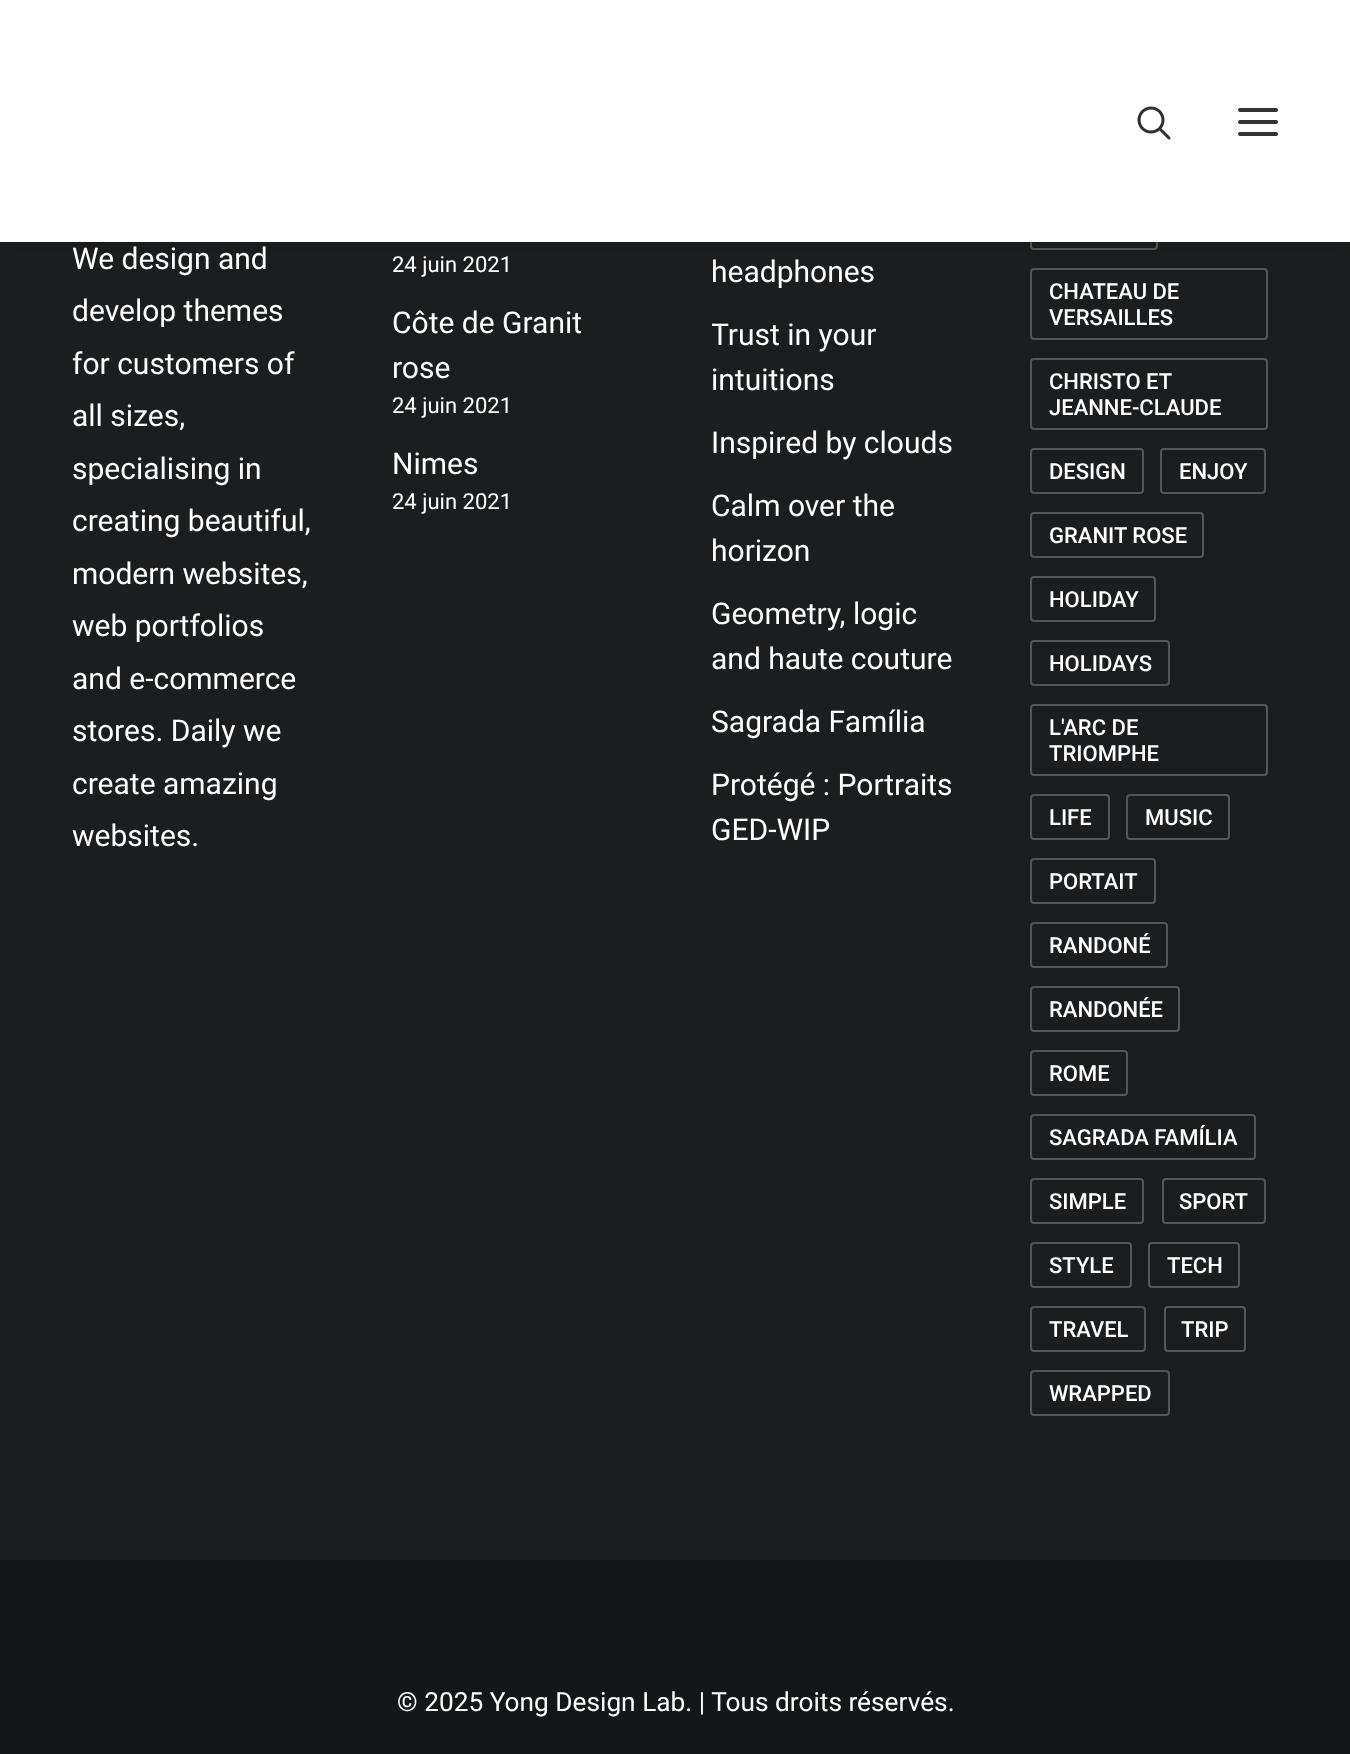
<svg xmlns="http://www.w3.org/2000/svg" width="1350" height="1754">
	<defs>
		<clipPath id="clip1"><rect x="712" y="204" width="246" height="648" /></clipPath>
	</defs>
	<rect width="100%" height="100%" fill="#1B1D1F" />
	<rect x="1031" y="205" width="126" height="44" rx="3" fill="none" stroke="#545657" stroke-width="2" />
	<rect x="20" y="28" width="1310" height="202" fill="#000000" fill-opacity="0.6" filter="blur(10px)" />
	<rect x="0" y="0" width="1350" height="242" fill="#FFFFFF" />
	<image x="1137" y="106" width="34" height="34" href="assets/img1.png" />
	<rect x="1238" y="120" width="40" height="4" rx="2" fill="#303133" />
	<rect x="1238" y="108" width="40" height="4" rx="2" fill="#303133" />
	<rect x="1238" y="132" width="40" height="4" rx="2" fill="#303133" />
	<g font-family="Roboto" font-size="30" fill="#FFFFFF">
		<text x="72" y="269">We design and</text>
		<text x="72" y="321">develop themes</text>
		<text x="72" y="374">for customers of</text>
		<text x="72" y="426">all sizes,</text>
		<text x="72" y="479">specialising in</text>
		<text x="72" y="531">creating beautiful,</text>
		<text x="72" y="584">modern websites,</text>
		<text x="72" y="636">web portfolios</text>
		<text x="72" y="689">and e-commerce</text>
		<text x="72" y="741">stores. Daily we</text>
		<text x="72" y="794">create amazing</text>
		<text x="72" y="846">websites.</text>
	</g>
	<text x="392" y="272" font-family="Roboto" font-size="22" fill="#FFFFFF">24 juin 2021</text>
	<g font-family="Roboto" font-size="30" fill="#FFFFFF">
		<text x="392" y="333">Côte de Granit</text>
		<text x="392" y="378">rose</text>
	</g>
	<text x="392" y="413" font-family="Roboto" font-size="22" fill="#FFFFFF">24 juin 2021</text>
	<text x="392" y="474" font-family="Roboto" font-size="30" fill="#FFFFFF">Nimes</text>
	<text x="392" y="509" font-family="Roboto" font-size="22" fill="#FFFFFF">24 juin 2021</text>
	<text x="711" y="282" font-family="Roboto" font-size="30" fill="#FFFFFF">headphones</text>
	<g clip-path="url(#clip1)">
		<text x="711" y="345" font-family="Roboto" font-size="30" fill="#FFFFFF">Trust in your</text>
	</g>
	<g font-family="Roboto" font-size="30" fill="#FFFFFF">
		<text x="711" y="390">intuitions</text>
		<text x="711" y="453">Inspired by clouds</text>
		<text x="711" y="516">Calm over the</text>
		<text x="711" y="561">horizon</text>
		<text x="711" y="624">Geometry, logic</text>
		<text x="711" y="669">and haute couture</text>
		<text x="711" y="732">Sagrada Família</text>
		<text x="711" y="795">Protégé : Portraits</text>
		<text x="711" y="840">GED-WIP</text>
	</g>
	<rect x="1031" y="269" width="236" height="70" rx="3" fill="none" stroke="#545657" stroke-width="2" />
	<g font-family="Roboto" font-size="22" font-weight="500" fill="#FFFFFF">
		<text x="1049" y="299">CHATEAU DE</text>
		<text x="1049" y="325">VERSAILLES</text>
	</g>
	<rect x="1031" y="359" width="236" height="70" rx="3" fill="none" stroke="#545657" stroke-width="2" />
	<g font-family="Roboto" font-size="22" font-weight="500" fill="#FFFFFF">
		<text x="1049" y="389">CHRISTO ET</text>
		<text x="1049" y="415">JEANNE-CLAUDE</text>
	</g>
	<rect x="1031" y="449" width="112" height="44" rx="3" fill="none" stroke="#545657" stroke-width="2" />
	<text x="1049" y="479" font-family="Roboto" font-size="22" font-weight="500" fill="#FFFFFF">DESIGN</text>
	<rect x="1161" y="449" width="104" height="44" rx="3" fill="none" stroke="#545657" stroke-width="2" />
	<text x="1179" y="479" font-family="Roboto" font-size="22" font-weight="500" fill="#FFFFFF">ENJOY</text>
	<rect x="1031" y="513" width="172" height="44" rx="3" fill="none" stroke="#545657" stroke-width="2" />
	<text x="1049" y="543" font-family="Roboto" font-size="22" font-weight="500" fill="#FFFFFF">GRANIT ROSE</text>
	<rect x="1031" y="577" width="124" height="44" rx="3" fill="none" stroke="#545657" stroke-width="2" />
	<text x="1049" y="607" font-family="Roboto" font-size="22" font-weight="500" fill="#FFFFFF">HOLIDAY</text>
	<rect x="1031" y="641" width="138" height="44" rx="3" fill="none" stroke="#545657" stroke-width="2" />
	<text x="1049" y="671" font-family="Roboto" font-size="22" font-weight="500" fill="#FFFFFF">HOLIDAYS</text>
	<rect x="1031" y="705" width="236" height="70" rx="3" fill="none" stroke="#545657" stroke-width="2" />
	<g font-family="Roboto" font-size="22" font-weight="500" fill="#FFFFFF">
		<text x="1049" y="735">L'ARC DE</text>
		<text x="1049" y="761">TRIOMPHE</text>
	</g>
	<rect x="1031" y="795" width="78" height="44" rx="3" fill="none" stroke="#545657" stroke-width="2" />
	<text x="1049" y="825" font-family="Roboto" font-size="22" font-weight="500" fill="#FFFFFF">LIFE</text>
	<rect x="1127" y="795" width="102" height="44" rx="3" fill="none" stroke="#545657" stroke-width="2" />
	<text x="1145" y="825" font-family="Roboto" font-size="22" font-weight="500" fill="#FFFFFF">MUSIC</text>
	<rect x="1031" y="859" width="124" height="44" rx="3" fill="none" stroke="#545657" stroke-width="2" />
	<text x="1049" y="889" font-family="Roboto" font-size="22" font-weight="500" fill="#FFFFFF">PORTAIT</text>
	<rect x="1031" y="923" width="136" height="44" rx="3" fill="none" stroke="#545657" stroke-width="2" />
	<text x="1049" y="953" font-family="Roboto" font-size="22" font-weight="500" fill="#FFFFFF">RANDONÉ</text>
	<rect x="1031" y="987" width="148" height="44" rx="3" fill="none" stroke="#545657" stroke-width="2" />
	<text x="1049" y="1017" font-family="Roboto" font-size="22" font-weight="500" fill="#FFFFFF">RANDONÉE</text>
	<rect x="1031" y="1051" width="96" height="44" rx="3" fill="none" stroke="#545657" stroke-width="2" />
	<text x="1049" y="1081" font-family="Roboto" font-size="22" font-weight="500" fill="#FFFFFF">ROME</text>
	<rect x="1031" y="1115" width="224" height="44" rx="3" fill="none" stroke="#545657" stroke-width="2" />
	<text x="1049" y="1145" font-family="Roboto" font-size="22" font-weight="500" fill="#FFFFFF">SAGRADA FAMÍLIA</text>
	<rect x="1031" y="1179" width="112" height="44" rx="3" fill="none" stroke="#545657" stroke-width="2" />
	<text x="1049" y="1209" font-family="Roboto" font-size="22" font-weight="500" fill="#FFFFFF">SIMPLE</text>
	<rect x="1163" y="1179" width="102" height="44" rx="3" fill="none" stroke="#545657" stroke-width="2" />
	<text x="1179" y="1209" font-family="Roboto" font-size="22" font-weight="500" fill="#FFFFFF">SPORT</text>
	<rect x="1031" y="1243" width="100" height="44" rx="3" fill="none" stroke="#545657" stroke-width="2" />
	<text x="1049" y="1273" font-family="Roboto" font-size="22" font-weight="500" fill="#FFFFFF">STYLE</text>
	<rect x="1149" y="1243" width="90" height="44" rx="3" fill="none" stroke="#545657" stroke-width="2" />
	<text x="1167" y="1273" font-family="Roboto" font-size="22" font-weight="500" fill="#FFFFFF">TECH</text>
	<rect x="1031" y="1307" width="114" height="44" rx="3" fill="none" stroke="#545657" stroke-width="2" />
	<text x="1049" y="1337" font-family="Roboto" font-size="22" font-weight="500" fill="#FFFFFF">TRAVEL</text>
	<rect x="1165" y="1307" width="80" height="44" rx="3" fill="none" stroke="#545657" stroke-width="2" />
	<text x="1181" y="1337" font-family="Roboto" font-size="22" font-weight="500" fill="#FFFFFF">TRIP</text>
	<rect x="1031" y="1371" width="138" height="44" rx="3" fill="none" stroke="#545657" stroke-width="2" />
	<text x="1049" y="1401" font-family="Roboto" font-size="22" font-weight="500" fill="#FFFFFF">WRAPPED</text>
	<rect x="0" y="1560" width="1350" height="194" fill="#141618" />
	<text x="397" y="1711" font-family="Roboto" font-size="26.25" fill="#FFFFFF">© 2025 Yong Design Lab. | Tous droits réservés.</text>
</svg>
